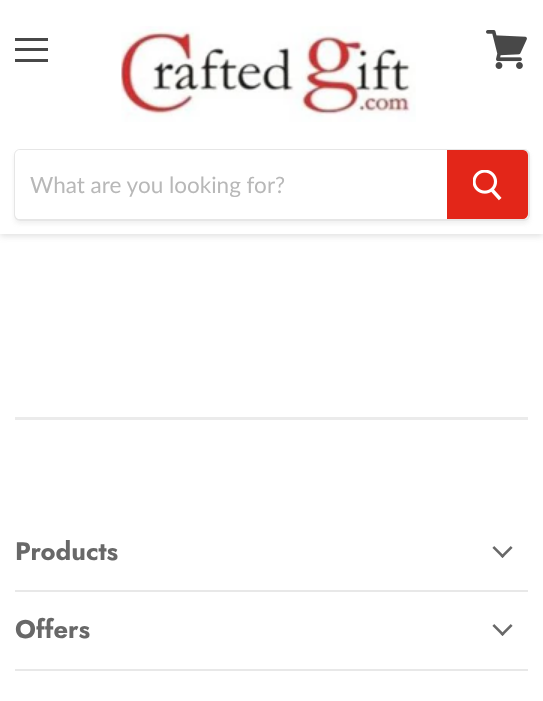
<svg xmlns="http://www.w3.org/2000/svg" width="543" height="701">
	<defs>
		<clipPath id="clip1"><path d="M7 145H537V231H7ZM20 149H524C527.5 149 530 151.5 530 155V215C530 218.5 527.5 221 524 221H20C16.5 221 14 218.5 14 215V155C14 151.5 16.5 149 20 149Z" clip-rule="evenodd" /></clipPath>
	</defs>
	<rect width="100%" height="100%" fill="#FFFFFF" />
	<rect x="0" y="2" width="543" height="234" fill="#808080" fill-opacity="0.25" filter="blur(3px)" />
	<rect x="0" y="0" width="543" height="234" fill="#FFFFFF" />
	<rect x="15" y="38" width="33" height="3" fill="#484848" />
	<rect x="15" y="48" width="33" height="3" fill="#484848" />
	<rect x="15" y="59" width="33" height="3" fill="#484848" />
	<image x="486" y="30" width="41" height="39" href="assets/img1.png" />
	<image x="121" y="26" width="295" height="96" href="assets/img2.png" />
	<g clip-path="url(#clip1)">
		<rect x="14" y="152" width="516" height="72" rx="6" fill="#808080" fill-opacity="0.11" filter="blur(2px)" />
	</g>
	<rect x="15" y="150" width="514" height="70" rx="5" fill="none" stroke="#808080" stroke-opacity="0.2" stroke-width="2" />
	<path d="M20 150H447V219H20C17 219 15 217 15 214V155C15 152 17 150 20 150Z" fill="#FFFFFF" />
	<text x="30" y="193" font-family="Lato" font-size="22.5" fill="#B8B8B8">What are you looking for?</text>
	<path d="M448 151H523C525 151 527 153 527 155V214C527 216 525 218 523 218H448Z" fill="#E32619" stroke="#E32619" stroke-width="2" />
	<image x="473" y="170" width="29" height="31" href="assets/img3.png" />
	<rect x="15" y="417" width="513" height="3" fill="#EBEBEB" />
	<rect x="15" y="590" width="513" height="2" fill="#E8E8E8" />
	<text x="15" y="560" font-family="Jost" font-size="25.5" font-weight="700" fill="#686868">Products</text>
	<image x="492" y="546" width="21" height="12" href="assets/img4.png" />
	<rect x="15" y="669" width="513" height="2" fill="#E8E8E8" />
	<text x="15" y="638" font-family="Jost" font-size="25.5" font-weight="700" fill="#686868">Offers</text>
	<image x="492" y="624" width="21" height="12" href="assets/img4.png" />
</svg>
